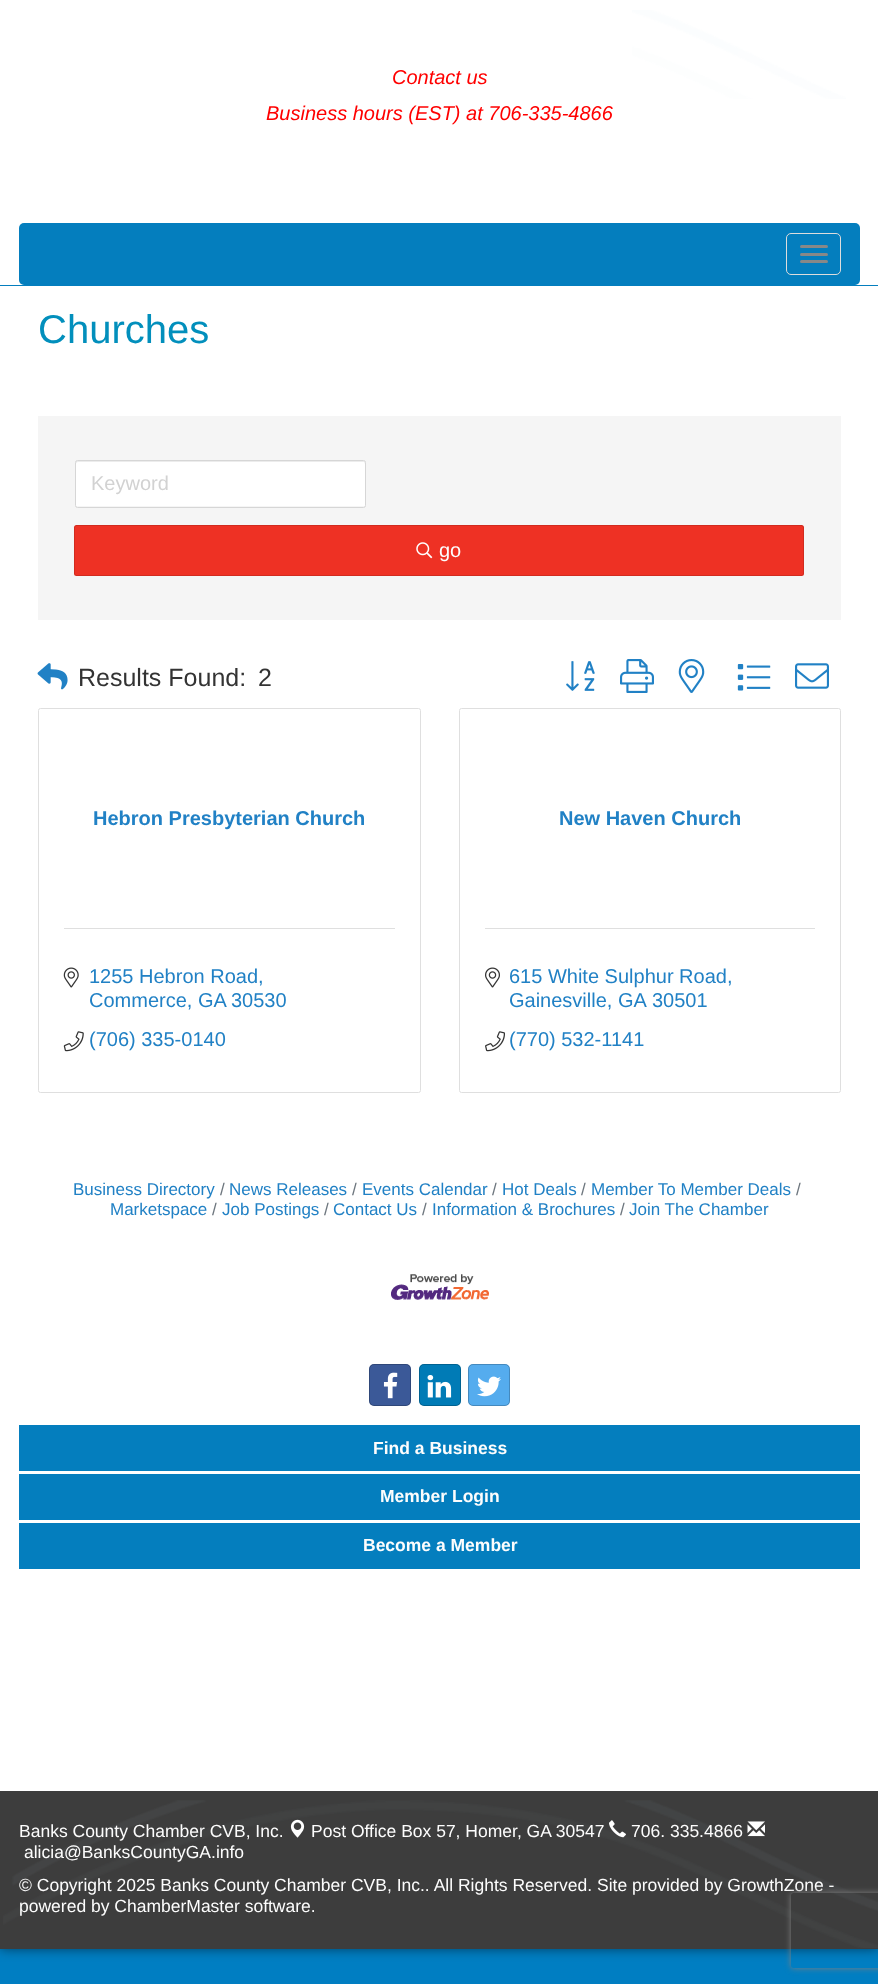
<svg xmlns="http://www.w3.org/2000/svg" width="878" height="1984">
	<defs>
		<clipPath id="clip1"><path d="M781 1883H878V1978H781ZM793.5 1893H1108.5C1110 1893 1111 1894 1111 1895.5V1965.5C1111 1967 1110 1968 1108.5 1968H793.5C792 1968 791 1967 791 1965.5V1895.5C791 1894 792 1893 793.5 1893Z" clip-rule="evenodd" /></clipPath>
	</defs>
	<rect width="100%" height="100%" fill="#007EC2" />
	<rect x="0" y="0" width="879" height="1949" fill="#000000" fill-opacity="0.5" filter="blur(6px)" />
	<rect x="0" y="0" width="878" height="1791" fill="#FFFFFF" />
	<image x="632" y="10" width="214" height="89" href="assets/img1.png" />
	<g font-family="Liberation Sans" font-size="20" font-style="italic" fill="#FF0000">
		<text x="392" y="84">Contact us</text>
		<text x="266" y="120">Business hours (EST) at 706-335-4866</text>
	</g>
	<rect x="19" y="223" width="841" height="62" rx="5" fill="#047EBE" />
	<rect x="786.5" y="233.5" width="54" height="41" rx="4.5" fill="none" stroke="#DDDDDD" />
	<rect x="800" y="245" width="28" height="3" rx="1.5" fill="#888888" />
	<rect x="800" y="253" width="28" height="3" rx="1.5" fill="#888888" />
	<rect x="800" y="260" width="28" height="3" rx="1.5" fill="#888888" />
	<rect x="0" y="285" width="878" height="1" fill="#047EBE" />
	<text x="38" y="343" font-family="Liberation Sans" font-size="40" fill="#028FBC">Churches</text>
	<rect x="38" y="416" width="803" height="204" fill="#F5F5F5" />
	<rect x="76" y="461" width="289" height="45" rx="1" fill="#FFFFFF" />
	<path d="M78 462H364L365 464C365 463 365 461 364 461H76V464C76 463 77 462 78 462Z" fill="#ECECEC" />
	<rect x="75.5" y="460.5" width="290" height="47" rx="2" fill="none" stroke="#D6D6D6" />
	<text x="91" y="490" font-family="Liberation Sans" font-size="20" fill="#D2D2D2">Keyword</text>
	<rect x="74" y="525" width="730" height="51" rx="2.5" fill="#EE3124" />
	<rect x="74.5" y="525.5" width="729" height="50" rx="2" fill="none" stroke="#000000" stroke-opacity="0.12" />
	<image x="416" y="542" width="17" height="17" href="assets/img2.png" />
	<text x="439" y="557" font-family="Liberation Sans" font-size="20" fill="#FDFDFD">go</text>
	<image x="37" y="663" width="31" height="27" href="assets/img3.png" />
	<g font-family="Liberation Sans" font-size="25" fill="#333333">
		<text x="78" y="686">Results Found:</text>
		<text x="258" y="686">2</text>
	</g>
	<image x="566" y="661" width="29" height="30" href="assets/img4.png" />
	<image x="620" y="659" width="34" height="34" href="assets/img5.png" />
	<image x="678" y="659" width="27" height="34" href="assets/img6.png" />
	<image x="737" y="664" width="34" height="27" href="assets/img7.png" />
	<image x="795" y="663" width="34" height="26" href="assets/img8.png" />
	<rect x="38.5" y="708.5" width="382" height="384" rx="2" fill="none" stroke="#DFDFDF" />
	<text x="93" y="825" font-family="Liberation Sans" font-size="20" font-weight="700" fill="#2181C5">Hebron Presbyterian Church</text>
	<rect x="64" y="928" width="331" height="1" fill="#DFDFDF" />
	<image x="63" y="967" width="16" height="21" href="assets/img9.png" />
	<g font-family="Liberation Sans" font-size="20" fill="#2181C5">
		<text x="89" y="983">1255 Hebron Road,</text>
		<text x="89" y="1007">Commerce, GA</text>
		<text x="231" y="1007">30530</text>
	</g>
	<image x="63" y="1031" width="21" height="21" href="assets/img10.png" />
	<text x="89" y="1046" font-family="Liberation Sans" font-size="20" fill="#2181C5">(706) 335-0140</text>
	<rect x="459.5" y="708.5" width="381" height="384" rx="2" fill="none" stroke="#DFDFDF" />
	<text x="559" y="825" font-family="Liberation Sans" font-size="20" font-weight="700" fill="#2181C5">New Haven Church</text>
	<rect x="485" y="928" width="330" height="1" fill="#DFDFDF" />
	<image x="485" y="967" width="15" height="21" href="assets/img11.png" />
	<g font-family="Liberation Sans" font-size="20" fill="#2181C5">
		<text x="509" y="983">615 White Sulphur Road,</text>
		<text x="509" y="1007">Gainesville, GA</text>
		<text x="652" y="1007">30501</text>
	</g>
	<image x="485" y="1031" width="20" height="21" href="assets/img12.png" />
	<text x="509" y="1046" font-family="Liberation Sans" font-size="20" fill="#2181C5">(770) 532-1141</text>
	<text x="73" y="1195" font-family="Liberation Sans" font-size="17" fill="#2181C5">Business Directory</text>
	<text x="796" y="1195" font-family="Liberation Sans" font-size="17" fill="#6C757D">/</text>
	<text x="110" y="1215" font-family="Liberation Sans" font-size="17" fill="#2181C5">Marketspace</text>
	<text x="220" y="1195" font-family="Liberation Sans" font-size="17" fill="#6C757D">/</text>
	<text x="229" y="1195" font-family="Liberation Sans" font-size="17" fill="#2181C5">News Releases</text>
	<text x="352" y="1195" font-family="Liberation Sans" font-size="17" fill="#6C757D">/</text>
	<text x="362" y="1195" font-family="Liberation Sans" font-size="17" fill="#2181C5">Events Calendar</text>
	<text x="492" y="1195" font-family="Liberation Sans" font-size="17" fill="#6C757D">/</text>
	<text x="502" y="1195" font-family="Liberation Sans" font-size="17" fill="#2181C5">Hot Deals</text>
	<text x="581" y="1195" font-family="Liberation Sans" font-size="17" fill="#6C757D">/</text>
	<text x="591" y="1195" font-family="Liberation Sans" font-size="17" fill="#2181C5">Member To Member Deals</text>
	<text x="212" y="1215" font-family="Liberation Sans" font-size="17" fill="#6C757D">/</text>
	<text x="222" y="1215" font-family="Liberation Sans" font-size="17" fill="#2181C5">Job Postings</text>
	<text x="324" y="1215" font-family="Liberation Sans" font-size="17" fill="#6C757D">/</text>
	<text x="333" y="1215" font-family="Liberation Sans" font-size="17" fill="#2181C5">Contact Us</text>
	<text x="422" y="1215" font-family="Liberation Sans" font-size="17" fill="#6C757D">/</text>
	<text x="432" y="1215" font-family="Liberation Sans" font-size="17" fill="#2181C5">Information &amp; Brochures</text>
	<text x="620" y="1215" font-family="Liberation Sans" font-size="17" fill="#6C757D">/</text>
	<text x="629" y="1215" font-family="Liberation Sans" font-size="17" fill="#2181C5">Join The Chamber</text>
	<image x="391" y="1274" width="98" height="26" href="assets/img13.png" />
	<rect x="369" y="1364" width="42" height="42" rx="5" fill="#3B5998" />
	<rect x="369.5" y="1364.5" width="41" height="41" rx="4.5" fill="none" stroke="#000000" stroke-opacity="0.2" />
	<image x="383" y="1372" width="15" height="27" href="assets/img14.png" />
	<rect x="419" y="1364" width="42" height="42" rx="5" fill="#007BB6" />
	<rect x="419.5" y="1364.5" width="41" height="41" rx="4.5" fill="none" stroke="#000000" stroke-opacity="0.2" />
	<image x="427" y="1375" width="25" height="23" href="assets/img15.png" />
	<rect x="468" y="1364" width="42" height="42" rx="5" fill="#55ACEE" />
	<rect x="468.5" y="1364.5" width="41" height="41" rx="4.5" fill="none" stroke="#000000" stroke-opacity="0.2" />
	<image x="477" y="1376" width="24" height="21" href="assets/img16.png" />
	<rect x="19" y="1425" width="841" height="46" fill="#047EBE" />
	<text x="373" y="1454" font-family="Liberation Sans" font-size="17.5" font-weight="700" fill="#FDFDFD">Find a Business</text>
	<rect x="19" y="1474" width="841" height="46" fill="#047EBE" />
	<text x="380" y="1502" font-family="Liberation Sans" font-size="17.5" font-weight="700" fill="#FDFDFD">Member Login</text>
	<rect x="19" y="1523" width="841" height="46" fill="#047EBE" />
	<text x="363" y="1551" font-family="Liberation Sans" font-size="17.5" font-weight="700" fill="#FDFDFD">Become a Member</text>
	<rect x="0" y="1791" width="878" height="158" fill="#3D3D3D" />
	<image x="3" y="1800" width="875" height="148" href="assets/img17.png" />
	<text x="19" y="1837" font-family="Liberation Sans" font-size="17.5" fill="#FDFDFD">Banks County Chamber CVB, Inc.</text>
	<image x="290" y="1819" width="15" height="19" href="assets/img18.png" />
	<text x="311" y="1837" font-family="Liberation Sans" font-size="17.5" fill="#FDFDFD">Post Office Box 57, Homer, GA 30547</text>
	<image x="609" y="1820" width="17" height="18" href="assets/img19.png" />
	<text x="631" y="1837" font-family="Liberation Sans" font-size="17.5" fill="#FDFDFD">706. 335.4866</text>
	<image x="747" y="1821" width="18" height="16" href="assets/img20.png" />
	<g font-family="Liberation Sans" font-size="17.5" fill="#FDFDFD">
		<text x="24" y="1858">alicia@BanksCountyGA.info</text>
		<text x="19" y="1891">© Copyright 2025 Banks County Chamber CVB, Inc.. All Rights Reserved. Site provided by GrowthZone -</text>
		<text x="19" y="1912">powered by ChamberMaster software.</text>
	</g>
	<g clip-path="url(#clip1)">
		<rect x="791" y="1893" width="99" height="75" rx="2.5" fill="#808080" filter="blur(3px)" />
	</g>
</svg>
